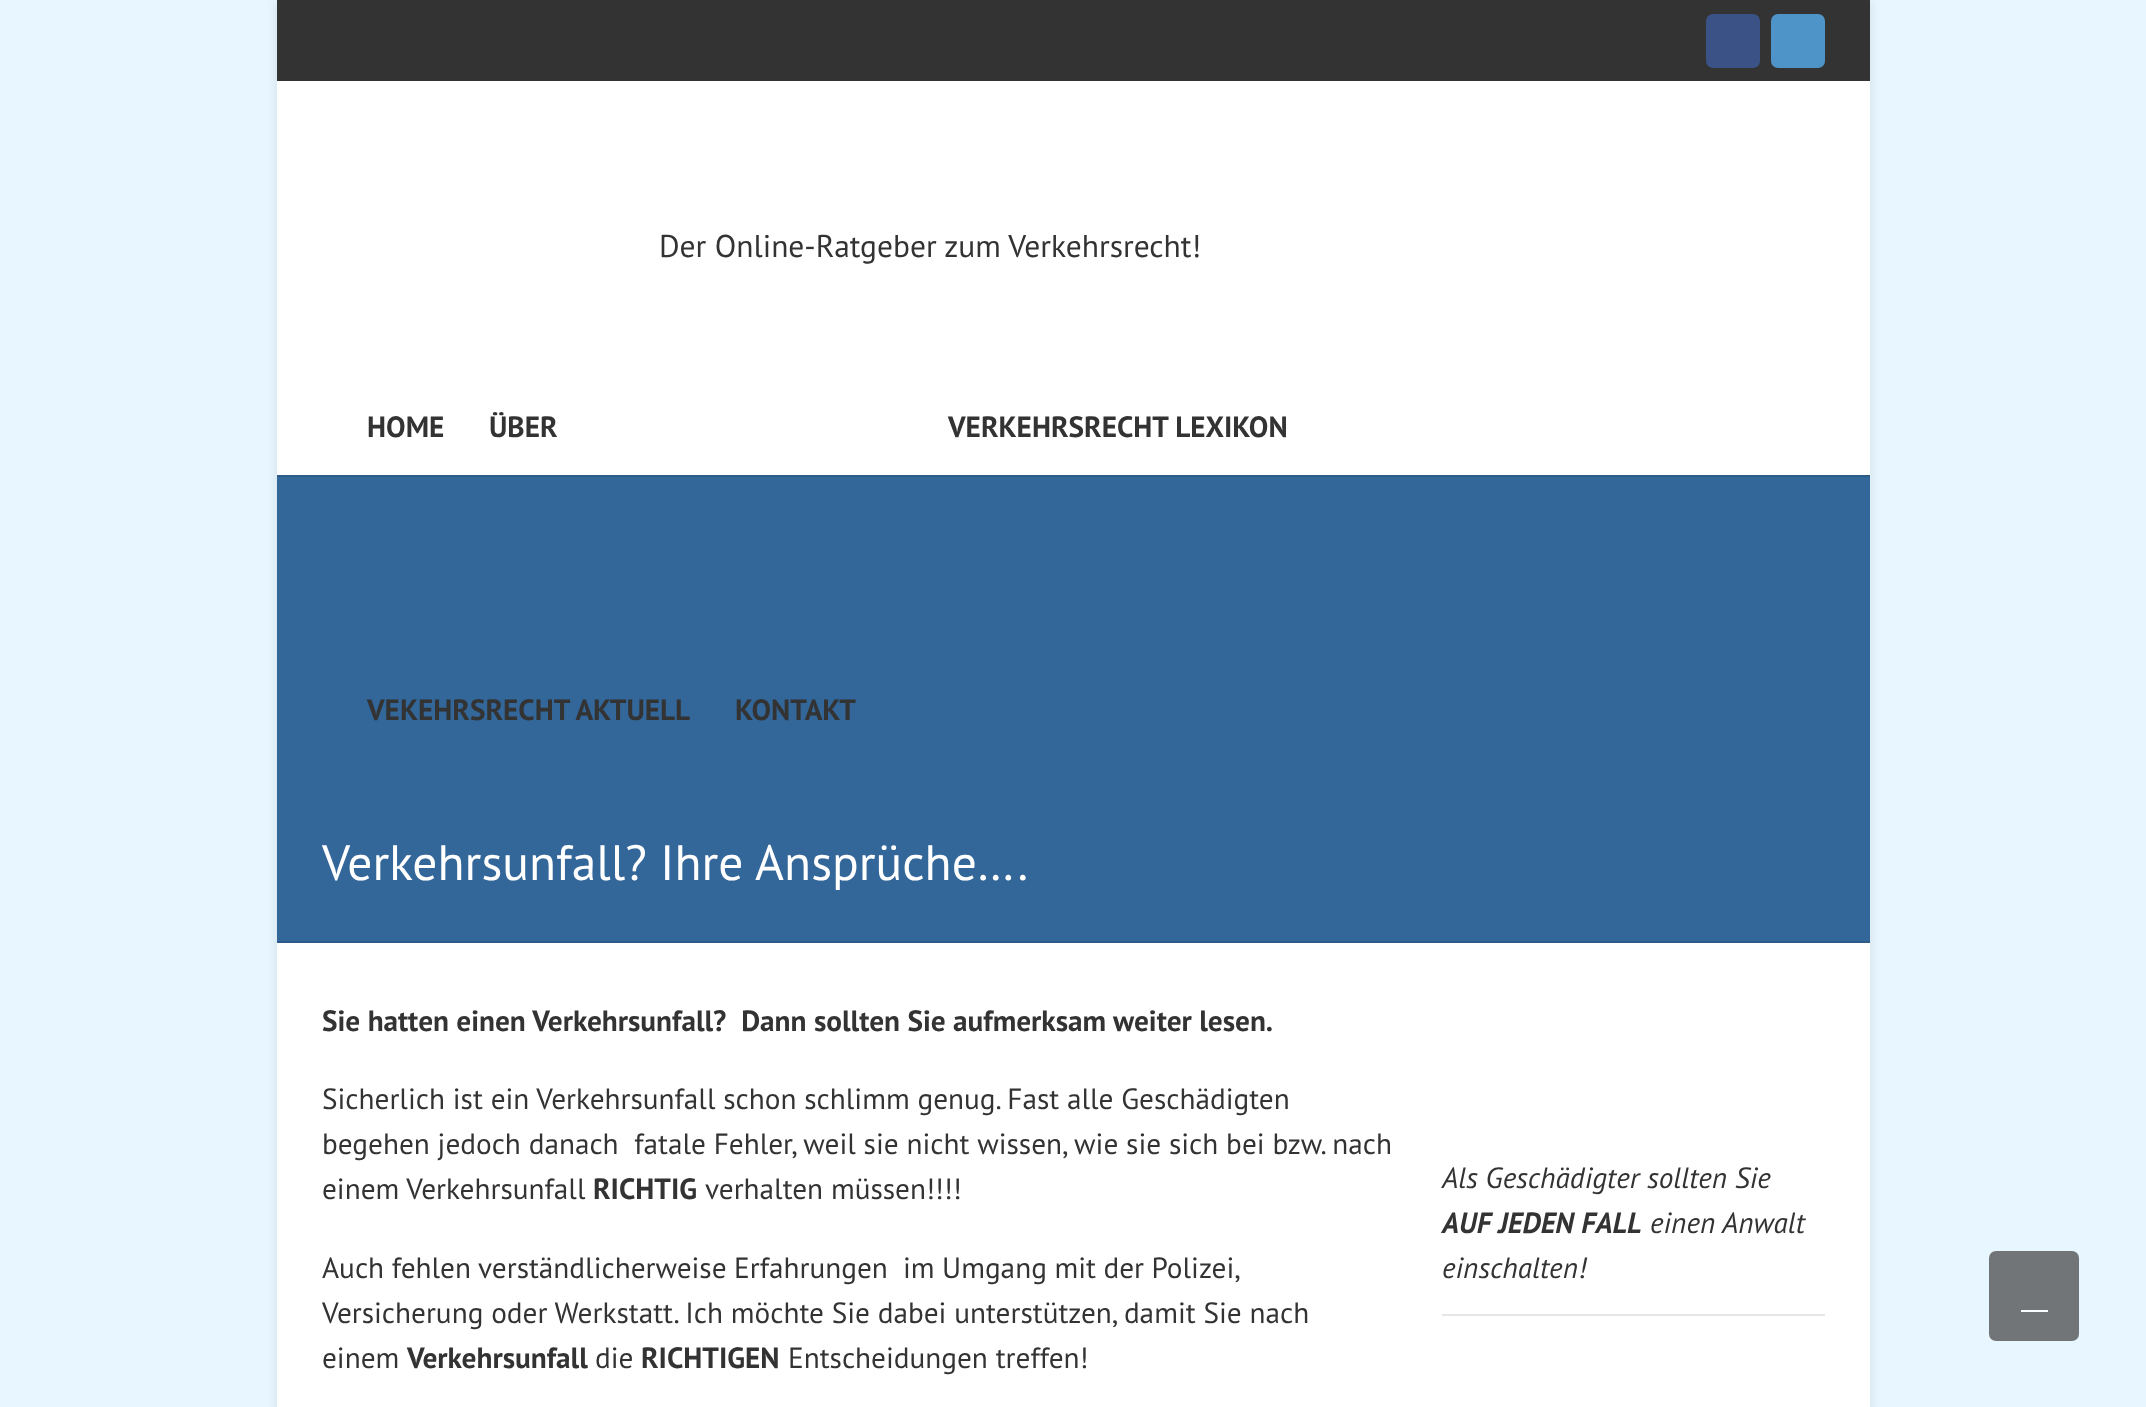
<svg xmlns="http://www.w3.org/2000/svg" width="2146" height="1407">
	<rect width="100%" height="100%" fill="#E8F7FF" />
	<rect x="277" y="0" width="1593" height="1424" fill="#000000" fill-opacity="0.1" filter="blur(5.5px)" />
	<rect x="277" y="81" width="1593" height="1326" fill="#FFFFFF" />
	<rect x="277" y="0" width="1593" height="81" fill="#333333" />
	<rect x="1706" y="14" width="54" height="54" rx="7" fill="#3A5285" />
	<rect x="1771" y="14" width="54" height="54" rx="7" fill="#4E94C9" />
	<text x="659" y="257" font-family="PT Sans" font-size="31.5" fill="#333333">Der Online-Ratgeber zum Verkehrsrecht!</text>
	<g font-family="PT Sans" font-size="29.25" font-weight="700" fill="#333333">
		<text x="367" y="437">HOME</text>
		<text x="489" y="437">ÜBER</text>
		<text x="948" y="437">VERKEHRSRECHT LEXIKON</text>
	</g>
	<rect x="277" y="477" width="1593" height="464" fill="#336699" />
	<g font-family="PT Sans" font-size="29.25" font-weight="700" fill="#333333">
		<text x="367" y="720">VEKEHRSRECHT AKTUELL</text>
		<text x="735" y="720">KONTAKT</text>
	</g>
	<rect x="277" y="475" width="1593" height="2" fill="#2E5C8A" />
	<rect x="277" y="941" width="1593" height="2" fill="#2E5C8A" />
	<text x="322" y="880" font-family="PT Sans" font-size="49.5" fill="#FFFFFF">Verkehrsunfall? Ihre Ansprüche….</text>
	<text x="322" y="1031" font-family="PT Sans" font-size="29.25" font-weight="700" fill="#333333" xml:space="preserve">Sie hatten einen Verkehrsunfall?  Dann sollten Sie aufmerksam weiter lesen.</text>
	<g font-family="PT Sans" font-size="29.25" fill="#333333">
		<text x="322" y="1109">Sicherlich ist ein Verkehrsunfall schon schlimm genug. Fast alle Geschädigten</text>
		<text x="322" y="1154" xml:space="preserve">begehen jedoch danach  fatale Fehler, weil sie nicht wissen, wie sie sich bei bzw. nach</text>
		<text x="322" y="1199">einem Verkehrsunfall</text>
	</g>
	<text x="593" y="1199" font-family="PT Sans" font-size="29.25" font-weight="700" fill="#333333">RICHTIG</text>
	<text x="705" y="1199" font-family="PT Sans" font-size="29.25" fill="#333333">verhalten müssen!!!!</text>
	<rect x="1442" y="1314" width="383" height="2" fill="#E6E6E6" />
	<text x="1442" y="1188" font-family="PT Sans" font-size="29.25" font-style="italic" fill="#333333">Als Geschädigter sollten Sie</text>
	<text x="1442" y="1233" font-family="PT Sans" font-size="29.25" font-weight="700" font-style="italic" fill="#333333">AUF JEDEN FALL</text>
	<g font-family="PT Sans" font-size="29.25" font-style="italic" fill="#333333">
		<text x="1650" y="1233">einen Anwalt</text>
		<text x="1442" y="1278">einschalten!</text>
	</g>
	<g font-family="PT Sans" font-size="29.25" fill="#333333">
		<text x="322" y="1278" word-spacing="-0.25" xml:space="preserve">Auch fehlen verständlicherweise Erfahrungen  im Umgang mit der Polizei,</text>
		<text x="322" y="1323">Versicherung oder Werkstatt. Ich möchte Sie dabei unterstützen, damit Sie nach</text>
		<text x="322" y="1368">einem</text>
	</g>
	<text x="407" y="1368" font-family="PT Sans" font-size="29.25" font-weight="700" fill="#333333">Verkehrsunfall</text>
	<text x="595" y="1368" font-family="PT Sans" font-size="29.25" fill="#333333">die</text>
	<text x="641" y="1368" font-family="PT Sans" font-size="29.25" font-weight="700" fill="#333333">RICHTIGEN</text>
	<text x="788" y="1368" font-family="PT Sans" font-size="29.25" fill="#333333">Entscheidungen treffen!</text>
	<rect x="1989" y="1251" width="90" height="90" rx="7" fill="#727577" />
	<rect x="2021" y="1310" width="27" height="2" fill="#FAFDFF" />
</svg>
